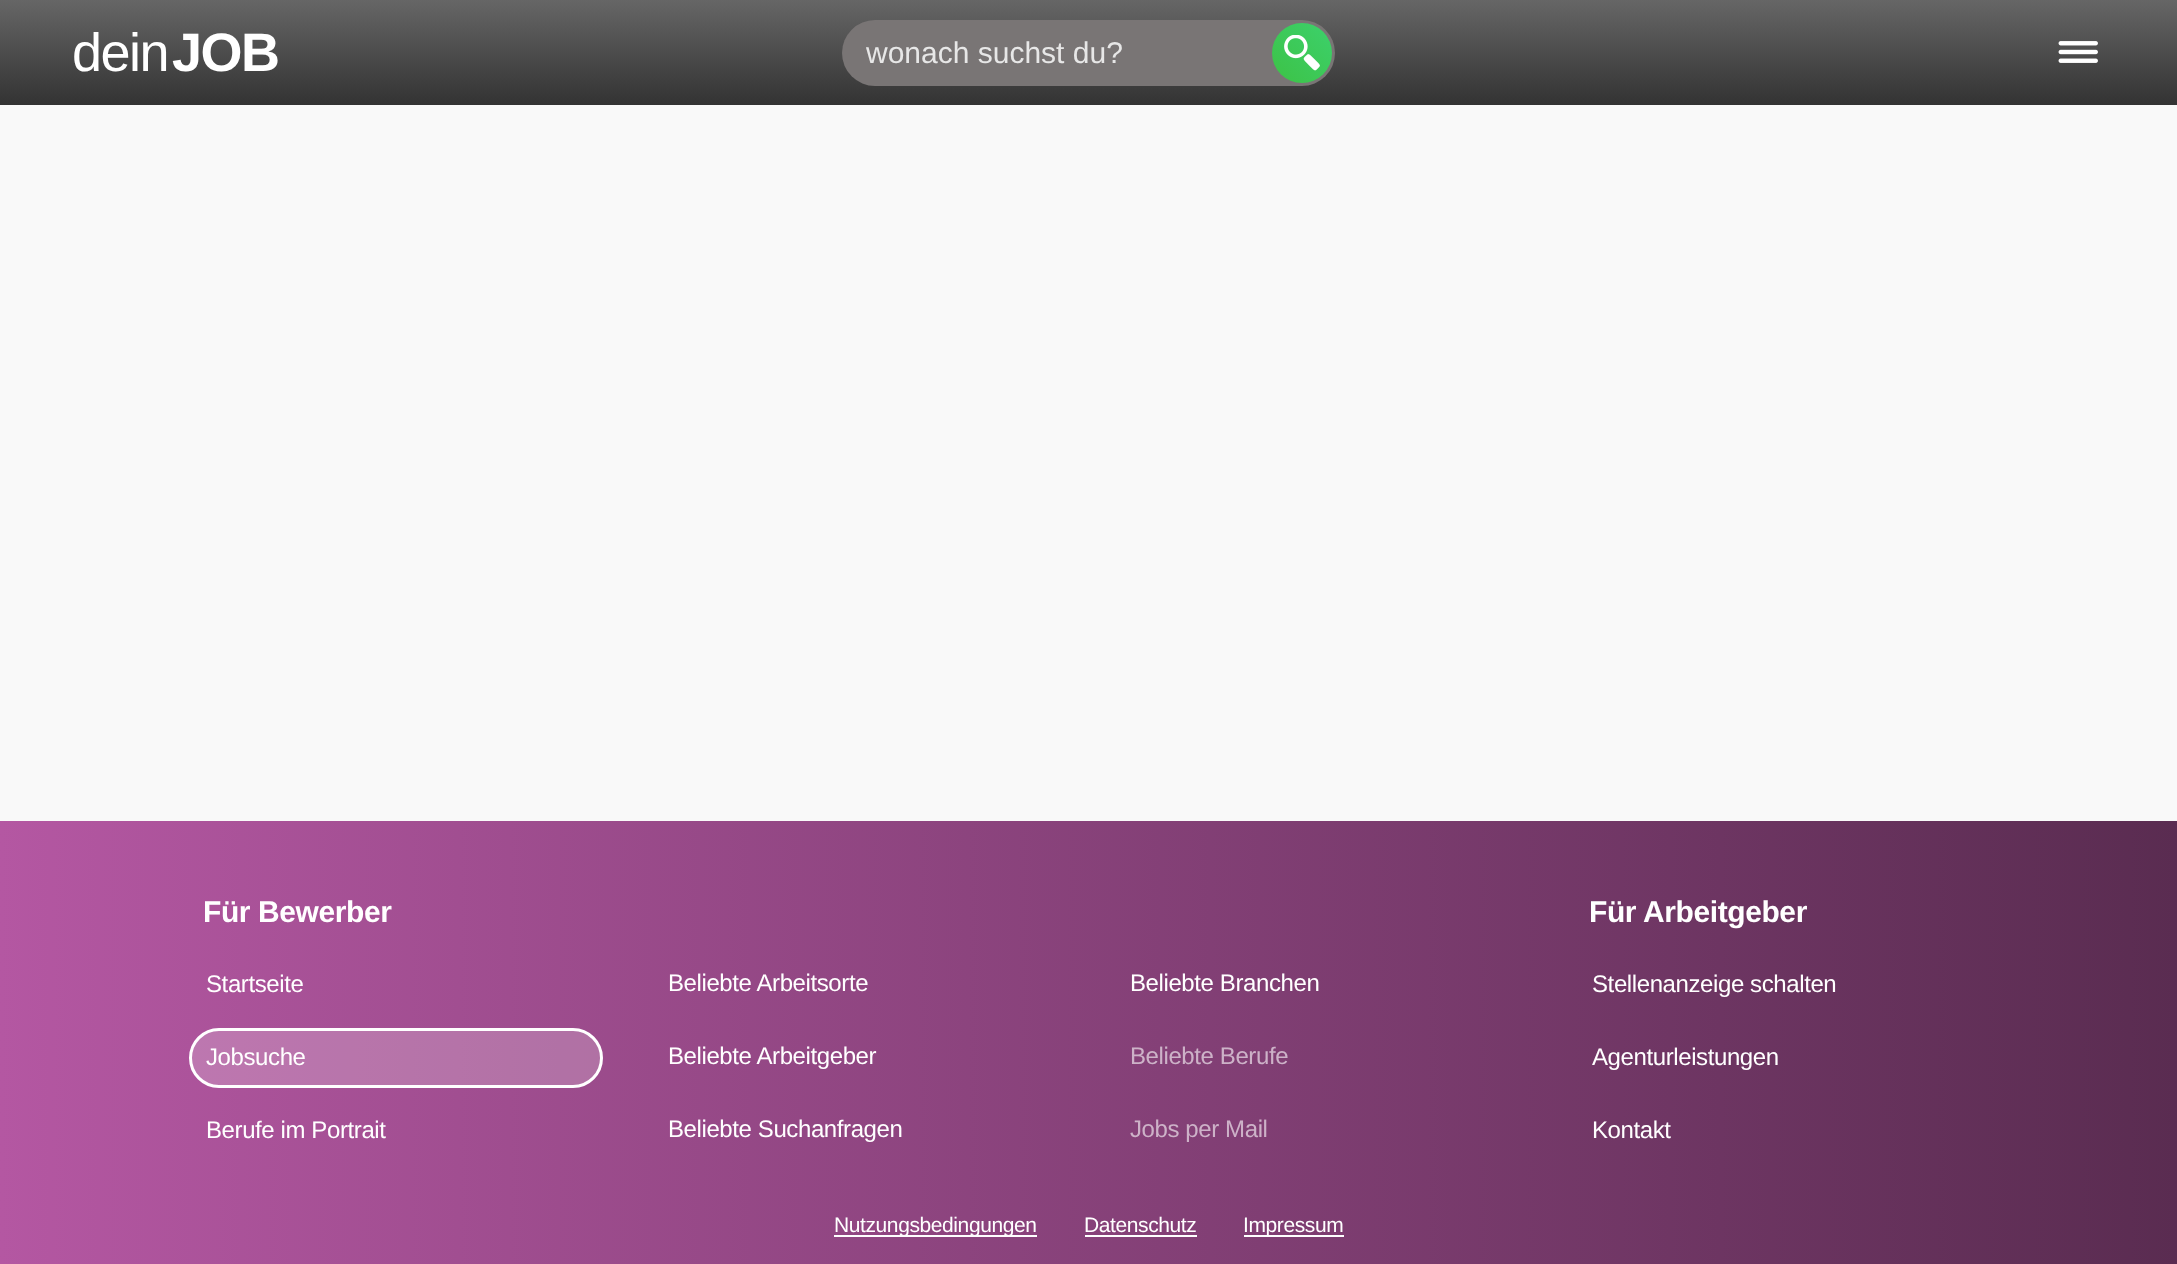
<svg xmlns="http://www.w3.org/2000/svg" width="2177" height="1264">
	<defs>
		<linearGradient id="g1" gradientUnits="userSpaceOnUse" x1="1089" y1="0" x2="1089" y2="105"><stop offset="0" stop-color="#666666" /><stop offset="1" stop-color="#333333" /></linearGradient>
		<linearGradient id="g2" gradientUnits="userSpaceOnUse" x1="1272" y1="83" x2="1332" y2="22"><stop offset="0" stop-color="#3DC246" /><stop offset="1" stop-color="#3CD16C" /></linearGradient>
		<linearGradient id="g3" gradientUnits="userSpaceOnUse" x1="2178" y1="1042" x2="0" y2="1043"><stop offset="0" stop-color="#5A2C51" /><stop offset="1" stop-color="#B457A2" /></linearGradient>
	</defs>
	<rect width="100%" height="100%" fill="#F9F9F9" />
	<rect x="0" y="0" width="2177" height="105" fill="url(#g1)" />
	<text x="72" y="71" font-family="Liberation Sans" font-size="54" letter-spacing="-1.5" fill="#FFFFFF">dein</text>
	<text x="172" y="71" font-family="Liberation Sans" font-size="54" font-weight="700" letter-spacing="-1.5" fill="#FFFFFF">JOB</text>
	<rect x="842" y="20" width="493" height="66" rx="33" fill="#797575" />
	<text x="866" y="63" font-family="Liberation Sans" font-size="30" fill="#E7E7E7">wonach suchst du?</text>
	<circle cx="1302" cy="53" r="30" fill="url(#g2)" />
	<image x="1284" y="35" width="36" height="36" href="assets/img1.png" />
	<image x="2058" y="41" width="40" height="22" href="assets/img2.png" />
	<rect x="0" y="821" width="2177" height="443" fill="url(#g3)" />
	<text x="203" y="922" font-family="Liberation Sans" font-size="30" font-weight="700" letter-spacing="-0.4" fill="#FFFFFF">Für Bewerber</text>
	<text x="206" y="992" font-family="Liberation Sans" font-size="24" letter-spacing="-0.4" fill="#FFFFFF">Startseite</text>
	<rect x="190.5" y="1029.5" width="411" height="57" rx="28.5" fill="#FFFFFF" fill-opacity="0.21" stroke="#FFFFFF" stroke-width="3" />
	<g font-family="Liberation Sans" font-size="24" letter-spacing="-0.4" fill="#FFFFFF">
		<text x="206" y="1065">Jobsuche</text>
		<text x="206" y="1138">Berufe im Portrait</text>
		<text x="668" y="991">Beliebte Arbeitsorte</text>
		<text x="668" y="1064">Beliebte Arbeitgeber</text>
		<text x="668" y="1137">Beliebte Suchanfragen</text>
		<text x="1130" y="991">Beliebte Branchen</text>
	</g>
	<g font-family="Liberation Sans" font-size="24" letter-spacing="-0.4" fill="#CDB2C8">
		<text x="1130" y="1064">Beliebte Berufe</text>
		<text x="1130" y="1137">Jobs per Mail</text>
	</g>
	<text x="1589" y="922" font-family="Liberation Sans" font-size="30" font-weight="700" letter-spacing="-0.4" fill="#FFFFFF">Für Arbeitgeber</text>
	<g font-family="Liberation Sans" font-size="24" letter-spacing="-0.4" fill="#FFFFFF">
		<text x="1592" y="992">Stellenanzeige schalten</text>
		<text x="1592" y="1065">Agenturleistungen</text>
		<text x="1592" y="1138">Kontakt</text>
	</g>
	<rect x="834" y="1235" width="203" height="2" fill="#FFFFFF" />
	<g font-family="Liberation Sans" font-size="21" letter-spacing="-0.4" fill="#FFFFFF">
		<text x="834" y="1232">Nutzungsbedingungen</text>
		<text x="1084" y="1232">Datenschutz</text>
	</g>
	<rect x="1085" y="1235" width="112" height="2" fill="#FFFFFF" />
	<rect x="1244" y="1235" width="100" height="2" fill="#FFFFFF" />
	<text x="1243" y="1232" font-family="Liberation Sans" font-size="21" letter-spacing="-0.4" fill="#FFFFFF">Impressum</text>
</svg>
